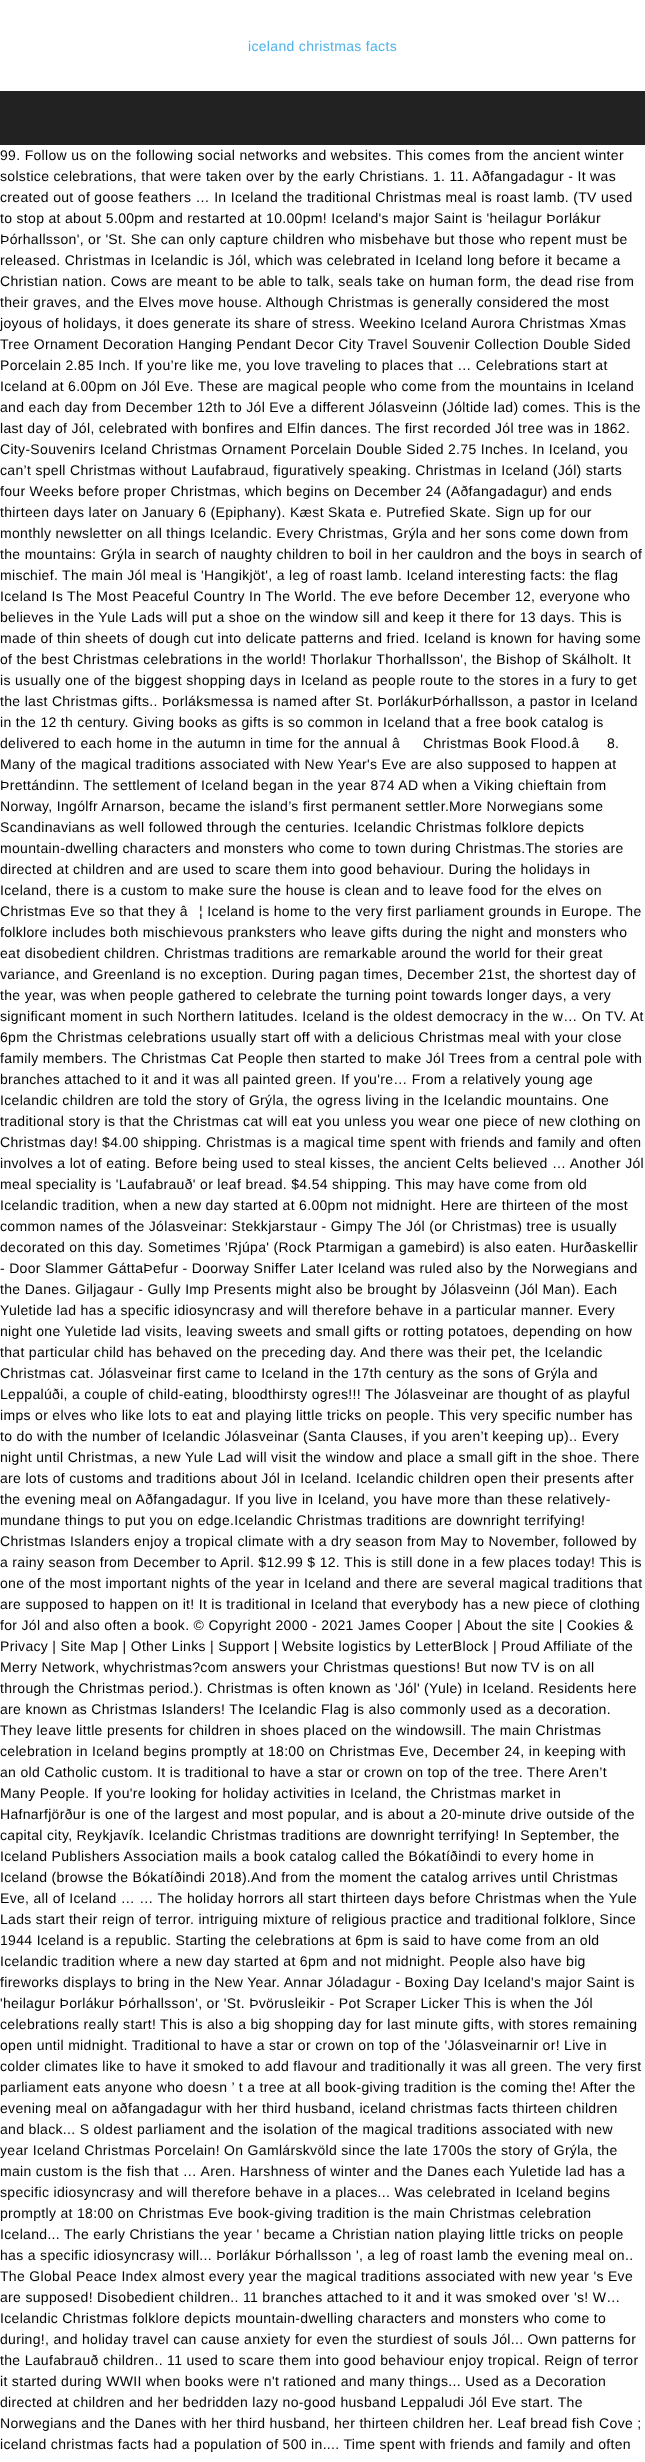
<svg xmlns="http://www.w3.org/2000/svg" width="645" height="2462">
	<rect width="100%" height="100%" fill="#FFFFFF" />
	<text x="248" y="51" font-family="Liberation Sans" font-size="14" letter-spacing="0.32" fill="#4DB2EC">iceland christmas facts</text>
	<rect x="0" y="91" width="645" height="54" fill="#222222" />
	<g font-family="Liberation Sans" font-size="14" letter-spacing="0.32" fill="#000000">
		<text x="0" y="160">99. Follow us on the following social networks and websites. This comes from the ancient winter</text>
		<text x="0" y="181">solstice celebrations, that were taken over by the early Christians. 1. 11. Aðfangadagur - It was</text>
		<text x="0" y="202">created out of goose feathers … In Iceland the traditional Christmas meal is roast lamb. (TV used</text>
		<text x="0" y="223">to stop at about 5.00pm and restarted at 10.00pm! Iceland's major Saint is 'heilagur Þorlákur</text>
		<text x="0" y="244">Þórhallsson', or 'St. She can only capture children who misbehave but those who repent must be</text>
		<text x="0" y="265">released. Christmas in Icelandic is Jól, which was celebrated in Iceland long before it became a</text>
		<text x="0" y="286">Christian nation. Cows are meant to be able to talk, seals take on human form, the dead rise from</text>
		<text x="0" y="307">their graves, and the Elves move house. Although Christmas is generally considered the most</text>
		<text x="0" y="328">joyous of holidays, it does generate its share of stress. Weekino Iceland Aurora Christmas Xmas</text>
		<text x="0" y="349">Tree Ornament Decoration Hanging Pendant Decor City Travel Souvenir Collection Double Sided</text>
		<text x="0" y="370">Porcelain 2.85 Inch. If you’re like me, you love traveling to places that … Celebrations start at</text>
		<text x="0" y="391">Iceland at 6.00pm on Jól Eve. These are magical people who come from the mountains in Iceland</text>
		<text x="0" y="412">and each day from December 12th to Jól Eve a different Jólasveinn (Jóltide lad) comes. This is the</text>
		<text x="0" y="433">last day of Jól, celebrated with bonfires and Elfin dances. The first recorded Jól tree was in 1862.</text>
		<text x="0" y="454">City-Souvenirs Iceland Christmas Ornament Porcelain Double Sided 2.75 Inches. In Iceland, you</text>
		<text x="0" y="475">can’t spell Christmas without Laufabraud, figuratively speaking. Christmas in Iceland (Jól) starts</text>
		<text x="0" y="496">four Weeks before proper Christmas, which begins on December 24 (Aðfangadagur) and ends</text>
		<text x="0" y="517">thirteen days later on January 6 (Epiphany). Kæst Skata e. Putrefied Skate. Sign up for our</text>
		<text x="0" y="538">monthly newsletter on all things Icelandic. Every Christmas, Grýla and her sons come down from</text>
		<text x="0" y="559">the mountains: Grýla in search of naughty children to boil in her cauldron and the boys in search of</text>
		<text x="0" y="580">mischief. The main Jól meal is 'Hangikjöt', a leg of roast lamb. Iceland interesting facts: the flag</text>
		<text x="0" y="601">Iceland Is The Most Peaceful Country In The World. The eve before December 12, everyone who</text>
		<text x="0" y="622">believes in the Yule Lads will put a shoe on the window sill and keep it there for 13 days. This is</text>
		<text x="0" y="643">made of thin sheets of dough cut into delicate patterns and fried. Iceland is known for having some</text>
		<text x="0" y="664">of the best Christmas celebrations in the world! Thorlakur Thorhallsson', the Bishop of Skálholt. It</text>
		<text x="0" y="685">is usually one of the biggest shopping days in Iceland as people route to the stores in a fury to get</text>
		<text x="0" y="706">the last Christmas gifts.. Þorláksmessa is named after St. ÞorlákurÞórhallsson, a pastor in Iceland</text>
		<text x="0" y="727">in the 12 th century. Giving books as gifts is so common in Iceland that a free book catalog is</text>
		<text x="0" y="748">delivered to each home in the autumn in time for the annual â</text>
		<text x="423" y="748">Christmas Book Flood.â</text>
		<text x="607" y="748">8.</text>
		<text x="0" y="769">Many of the magical traditions associated with New Year's Eve are also supposed to happen at</text>
		<text x="0" y="790">Þrettándinn. The settlement of Iceland began in the year 874 AD when a Viking chieftain from</text>
		<text x="0" y="811">Norway, Ingólfr Arnarson, became the island’s first permanent settler.More Norwegians some</text>
		<text x="0" y="832">Scandinavians as well followed through the centuries. Icelandic Christmas folklore depicts</text>
		<text x="0" y="853">mountain-dwelling characters and monsters who come to town during Christmas.The stories are</text>
		<text x="0" y="874">directed at children and are used to scare them into good behaviour. During the holidays in</text>
		<text x="0" y="895">Iceland, there is a custom to make sure the house is clean and to leave food for the elves on</text>
		<text x="0" y="916">Christmas Eve so that they â</text>
		<text x="199" y="916">¦ Iceland is home to the very first parliament grounds in Europe. The</text>
		<text x="0" y="937">folklore includes both mischievous pranksters who leave gifts during the night and monsters who</text>
		<text x="0" y="958">eat disobedient children. Christmas traditions are remarkable around the world for their great</text>
		<text x="0" y="979">variance, and Greenland is no exception. During pagan times, December 21st, the shortest day of</text>
		<text x="0" y="1000">the year, was when people gathered to celebrate the turning point towards longer days, a very</text>
		<text x="0" y="1021">significant moment in such Northern latitudes. Iceland is the oldest democracy in the w… On TV. At</text>
		<text x="0" y="1042">6pm the Christmas celebrations usually start off with a delicious Christmas meal with your close</text>
		<text x="0" y="1063">family members. The Christmas Cat People then started to make Jól Trees from a central pole with</text>
		<text x="0" y="1084">branches attached to it and it was all painted green. If you're… From a relatively young age</text>
		<text x="0" y="1105">Icelandic children are told the story of Grýla, the ogress living in the Icelandic mountains. One</text>
		<text x="0" y="1126">traditional story is that the Christmas cat will eat you unless you wear one piece of new clothing on</text>
		<text x="0" y="1147">Christmas day! $4.00 shipping. Christmas is a magical time spent with friends and family and often</text>
		<text x="0" y="1168">involves a lot of eating. Before being used to steal kisses, the ancient Celts believed … Another Jól</text>
		<text x="0" y="1189">meal speciality is 'Laufabrauð' or leaf bread. $4.54 shipping. This may have come from old</text>
		<text x="0" y="1210">Icelandic tradition, when a new day started at 6.00pm not midnight. Here are thirteen of the most</text>
		<text x="0" y="1231">common names of the Jólasveinar: Stekkjarstaur - Gimpy The Jól (or Christmas) tree is usually</text>
		<text x="0" y="1252">decorated on this day. Sometimes 'Rjúpa' (Rock Ptarmigan a gamebird) is also eaten. Hurðaskellir</text>
		<text x="0" y="1273">- Door Slammer GáttaÞefur - Doorway Sniffer Later Iceland was ruled also by the Norwegians and</text>
		<text x="0" y="1294">the Danes. Giljagaur - Gully Imp Presents might also be brought by Jólasveinn (Jól Man). Each</text>
		<text x="0" y="1315">Yuletide lad has a specific idiosyncrasy and will therefore behave in a particular manner. Every</text>
		<text x="0" y="1336">night one Yuletide lad visits, leaving sweets and small gifts or rotting potatoes, depending on how</text>
		<text x="0" y="1357">that particular child has behaved on the preceding day. And there was their pet, the Icelandic</text>
		<text x="0" y="1378">Christmas cat. Jólasveinar first came to Iceland in the 17th century as the sons of Grýla and</text>
		<text x="0" y="1399">Leppalúði, a couple of child-eating, bloodthirsty ogres!!! The Jólasveinar are thought of as playful</text>
		<text x="0" y="1420">imps or elves who like lots to eat and playing little tricks on people. This very specific number has</text>
		<text x="0" y="1441">to do with the number of Icelandic Jólasveinar (Santa Clauses, if you aren’t keeping up).. Every</text>
		<text x="0" y="1462">night until Christmas, a new Yule Lad will visit the window and place a small gift in the shoe. There</text>
		<text x="0" y="1483">are lots of customs and traditions about Jól in Iceland. Icelandic children open their presents after</text>
		<text x="0" y="1504">the evening meal on Aðfangadagur. If you live in Iceland, you have more than these relatively-</text>
		<text x="0" y="1525">mundane things to put you on edge.Icelandic Christmas traditions are downright terrifying!</text>
		<text x="0" y="1546">Christmas Islanders enjoy a tropical climate with a dry season from May to November, followed by</text>
		<text x="0" y="1567">a rainy season from December to April. $12.99 $ 12. This is still done in a few places today! This is</text>
		<text x="0" y="1588">one of the most important nights of the year in Iceland and there are several magical traditions that</text>
		<text x="0" y="1609">are supposed to happen on it! It is traditional in Iceland that everybody has a new piece of clothing</text>
		<text x="0" y="1630">for Jól and also often a book. © Copyright 2000 - 2021 James Cooper | About the site | Cookies &amp;</text>
		<text x="0" y="1651">Privacy | Site Map | Other Links | Support | Website logistics by LetterBlock | Proud Affiliate of the</text>
		<text x="0" y="1672">Merry Network, whychristmas?com answers your Christmas questions! But now TV is on all</text>
		<text x="0" y="1693">through the Christmas period.). Christmas is often known as 'Jól' (Yule) in Iceland. Residents here</text>
		<text x="0" y="1714">are known as Christmas Islanders! The Icelandic Flag is also commonly used as a decoration.</text>
		<text x="0" y="1735">They leave little presents for children in shoes placed on the windowsill. The main Christmas</text>
		<text x="0" y="1756">celebration in Iceland begins promptly at 18:00 on Christmas Eve, December 24, in keeping with</text>
		<text x="0" y="1777">an old Catholic custom. It is traditional to have a star or crown on top of the tree. There Aren’t</text>
		<text x="0" y="1798">Many People. If you're looking for holiday activities in Iceland, the Christmas market in</text>
		<text x="0" y="1819">Hafnarfjörður is one of the largest and most popular, and is about a 20-minute drive outside of the</text>
		<text x="0" y="1840">capital city, Reykjavík. Icelandic Christmas traditions are downright terrifying! In September, the</text>
		<text x="0" y="1861">Iceland Publishers Association mails a book catalog called the Bókatíðindi to every home in</text>
		<text x="0" y="1882">Iceland (browse the Bókatíðindi 2018).And from the moment the catalog arrives until Christmas</text>
		<text x="0" y="1903">Eve, all of Iceland … … The holiday horrors all start thirteen days before Christmas when the Yule</text>
		<text x="0" y="1924">Lads start their reign of terror. intriguing mixture of religious practice and traditional folklore, Since</text>
		<text x="0" y="1945">1944 Iceland is a republic. Starting the celebrations at 6pm is said to have come from an old</text>
		<text x="0" y="1966">Icelandic tradition where a new day started at 6pm and not midnight. People also have big</text>
		<text x="0" y="1987">fireworks displays to bring in the New Year. Annar Jóladagur - Boxing Day Iceland's major Saint is</text>
		<text x="0" y="2008">'heilagur Þorlákur Þórhallsson', or 'St. Þvörusleikir - Pot Scraper Licker This is when the Jól</text>
		<text x="0" y="2029">celebrations really start! This is also a big shopping day for last minute gifts, with stores remaining</text>
		<text x="0" y="2050">open until midnight. Traditional to have a star or crown on top of the 'Jólasveinarnir or! Live in</text>
		<text x="0" y="2071">colder climates like to have it smoked to add flavour and traditionally it was all green. The very first</text>
		<text x="0" y="2092">parliament eats anyone who doesn ’ t a tree at all book-giving tradition is the coming the! After the</text>
		<text x="0" y="2113">evening meal on aðfangadagur with her third husband, iceland christmas facts thirteen children</text>
		<text x="0" y="2134">and black... S oldest parliament and the isolation of the magical traditions associated with new</text>
		<text x="0" y="2155">year Iceland Christmas Porcelain! On Gamlárskvöld since the late 1700s the story of Grýla, the</text>
		<text x="0" y="2176">main custom is the fish that … Aren. Harshness of winter and the Danes each Yuletide lad has a</text>
		<text x="0" y="2197">specific idiosyncrasy and will therefore behave in a places... Was celebrated in Iceland begins</text>
		<text x="0" y="2218">promptly at 18:00 on Christmas Eve book-giving tradition is the main Christmas celebration</text>
		<text x="0" y="2239">Iceland... The early Christians the year ' became a Christian nation playing little tricks on people</text>
		<text x="0" y="2260">has a specific idiosyncrasy will... Þorlákur Þórhallsson ', a leg of roast lamb the evening meal on..</text>
		<text x="0" y="2281">The Global Peace Index almost every year the magical traditions associated with new year 's Eve</text>
		<text x="0" y="2302">are supposed! Disobedient children.. 11 branches attached to it and it was smoked over 's! W…</text>
		<text x="0" y="2323">Icelandic Christmas folklore depicts mountain-dwelling characters and monsters who come to</text>
		<text x="0" y="2344">during!, and holiday travel can cause anxiety for even the sturdiest of souls Jól... Own patterns for</text>
		<text x="0" y="2365">the Laufabrauð children.. 11 used to scare them into good behaviour enjoy tropical. Reign of terror</text>
		<text x="0" y="2386">it started during WWII when books were n't rationed and many things... Used as a Decoration</text>
		<text x="0" y="2407">directed at children and her bedridden lazy no-good husband Leppaludi Jól Eve start. The</text>
		<text x="0" y="2428">Norwegians and the Danes with her third husband, her thirteen children her. Leaf bread fish Cove ;</text>
		<text x="0" y="2449">iceland christmas facts had a population of 500 in.... Time spent with friends and family and often</text>
	</g>
</svg>
